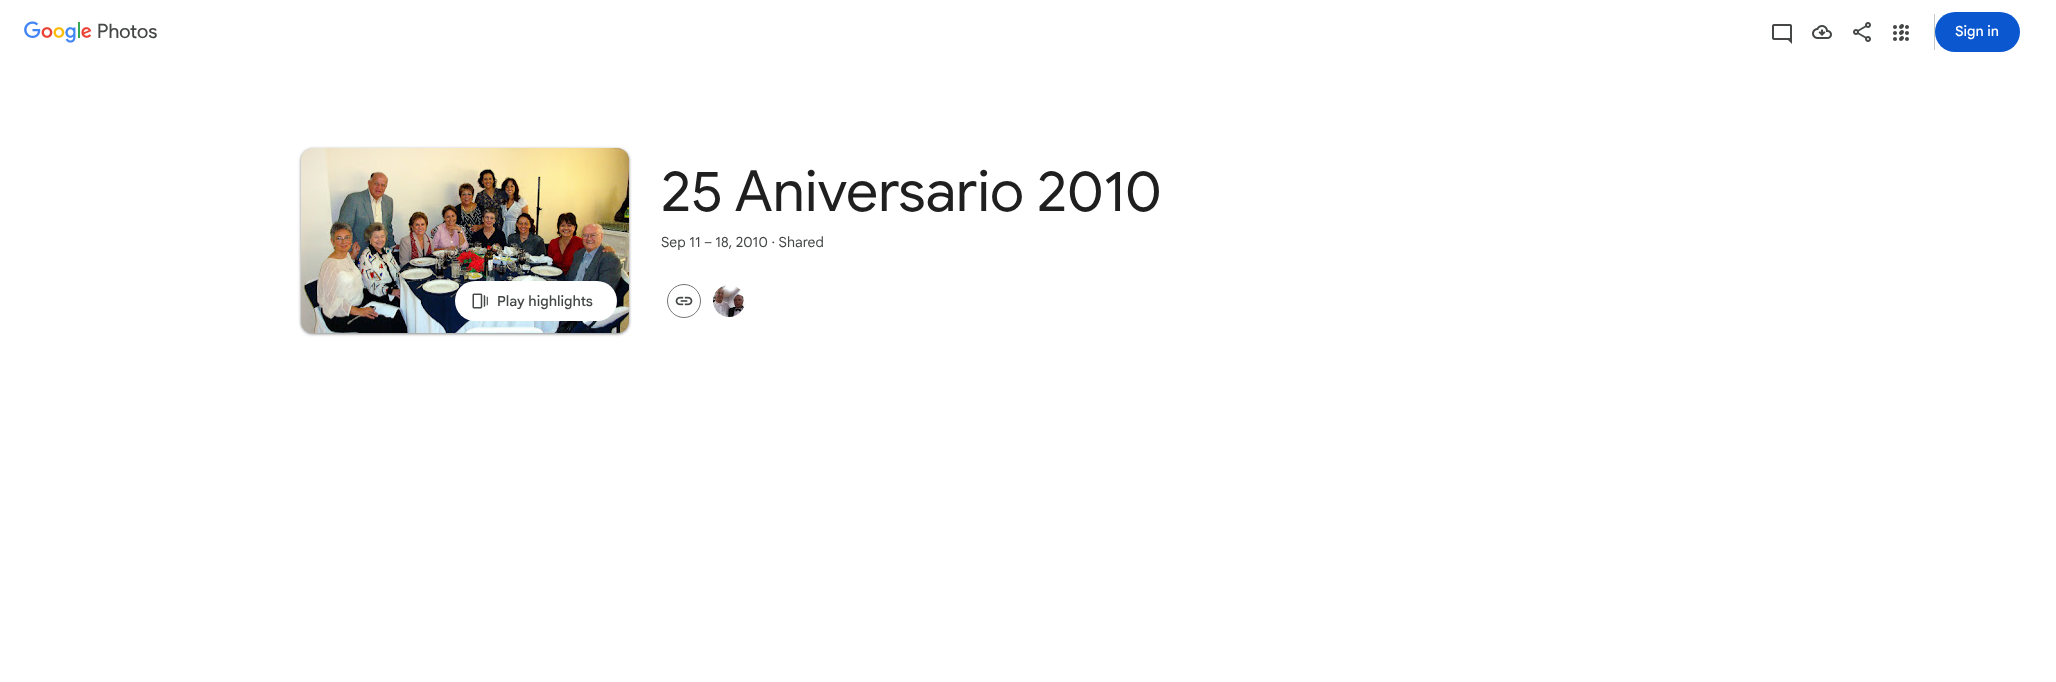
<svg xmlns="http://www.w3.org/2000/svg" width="2056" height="682">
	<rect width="100%" height="100%" fill="#FFFFFF" />
	<image x="24" y="21" width="68" height="22" href="assets/img1.png" />
	<text x="97" y="38" font-family="Product Sans" font-size="20" fill="#444746">Photos</text>
	<image x="1772" y="24" width="20" height="20" href="assets/img2.png" />
	<image x="1812" y="25" width="20" height="14" href="assets/img3.png" />
	<image x="1853" y="22" width="18" height="20" href="assets/img4.png" />
	<image x="1900" y="24" width="4" height="16" href="assets/img5.png" />
	<rect x="1934" y="14" width="1" height="36" fill="#C4C7C5" />
	<text x="661" y="211" font-family="Google Sans" font-size="57" fill="#1F1F1F">25 Aniversario 2010</text>
	<text x="661" y="247" font-family="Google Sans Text" font-size="14" fill="#444746">Sep 11 – 18, 2010 · Shared</text>
	<circle cx="684" cy="301" r="16.5" fill="none" stroke="#747775" />
	<image x="675" y="296" width="18" height="10" href="assets/img6.png" />
	<image x="713" y="285" width="32" height="32" href="assets/img7.png" />
	<rect x="300" y="148" width="330" height="187" rx="13" fill="#000000" fill-opacity="0.15" filter="blur(1.5px)" />
	<rect x="301" y="149" width="328" height="185" rx="12" fill="#000000" fill-opacity="0.3" filter="blur(1px)" />
	<image x="301" y="148" width="328" height="185" href="assets/img8.png" />
	<rect x="455" y="281" width="162" height="40" rx="20" fill="#FFFFFF" />
	<image x="472" y="293" width="16" height="16" href="assets/img9.png" />
	<text x="497" y="306" font-family="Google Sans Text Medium" font-size="14" font-weight="500" fill="#444746">Play highlights</text>
	<image x="1893" y="25" width="16" height="16" href="assets/img10.png" />
	<rect x="1935" y="12" width="85" height="40" rx="20" fill="#0B57D0" />
	<text x="1955" y="36" font-family="Google Sans Text Medium" font-size="14" font-weight="500" fill="#FFFFFF">Sign in</text>
</svg>
